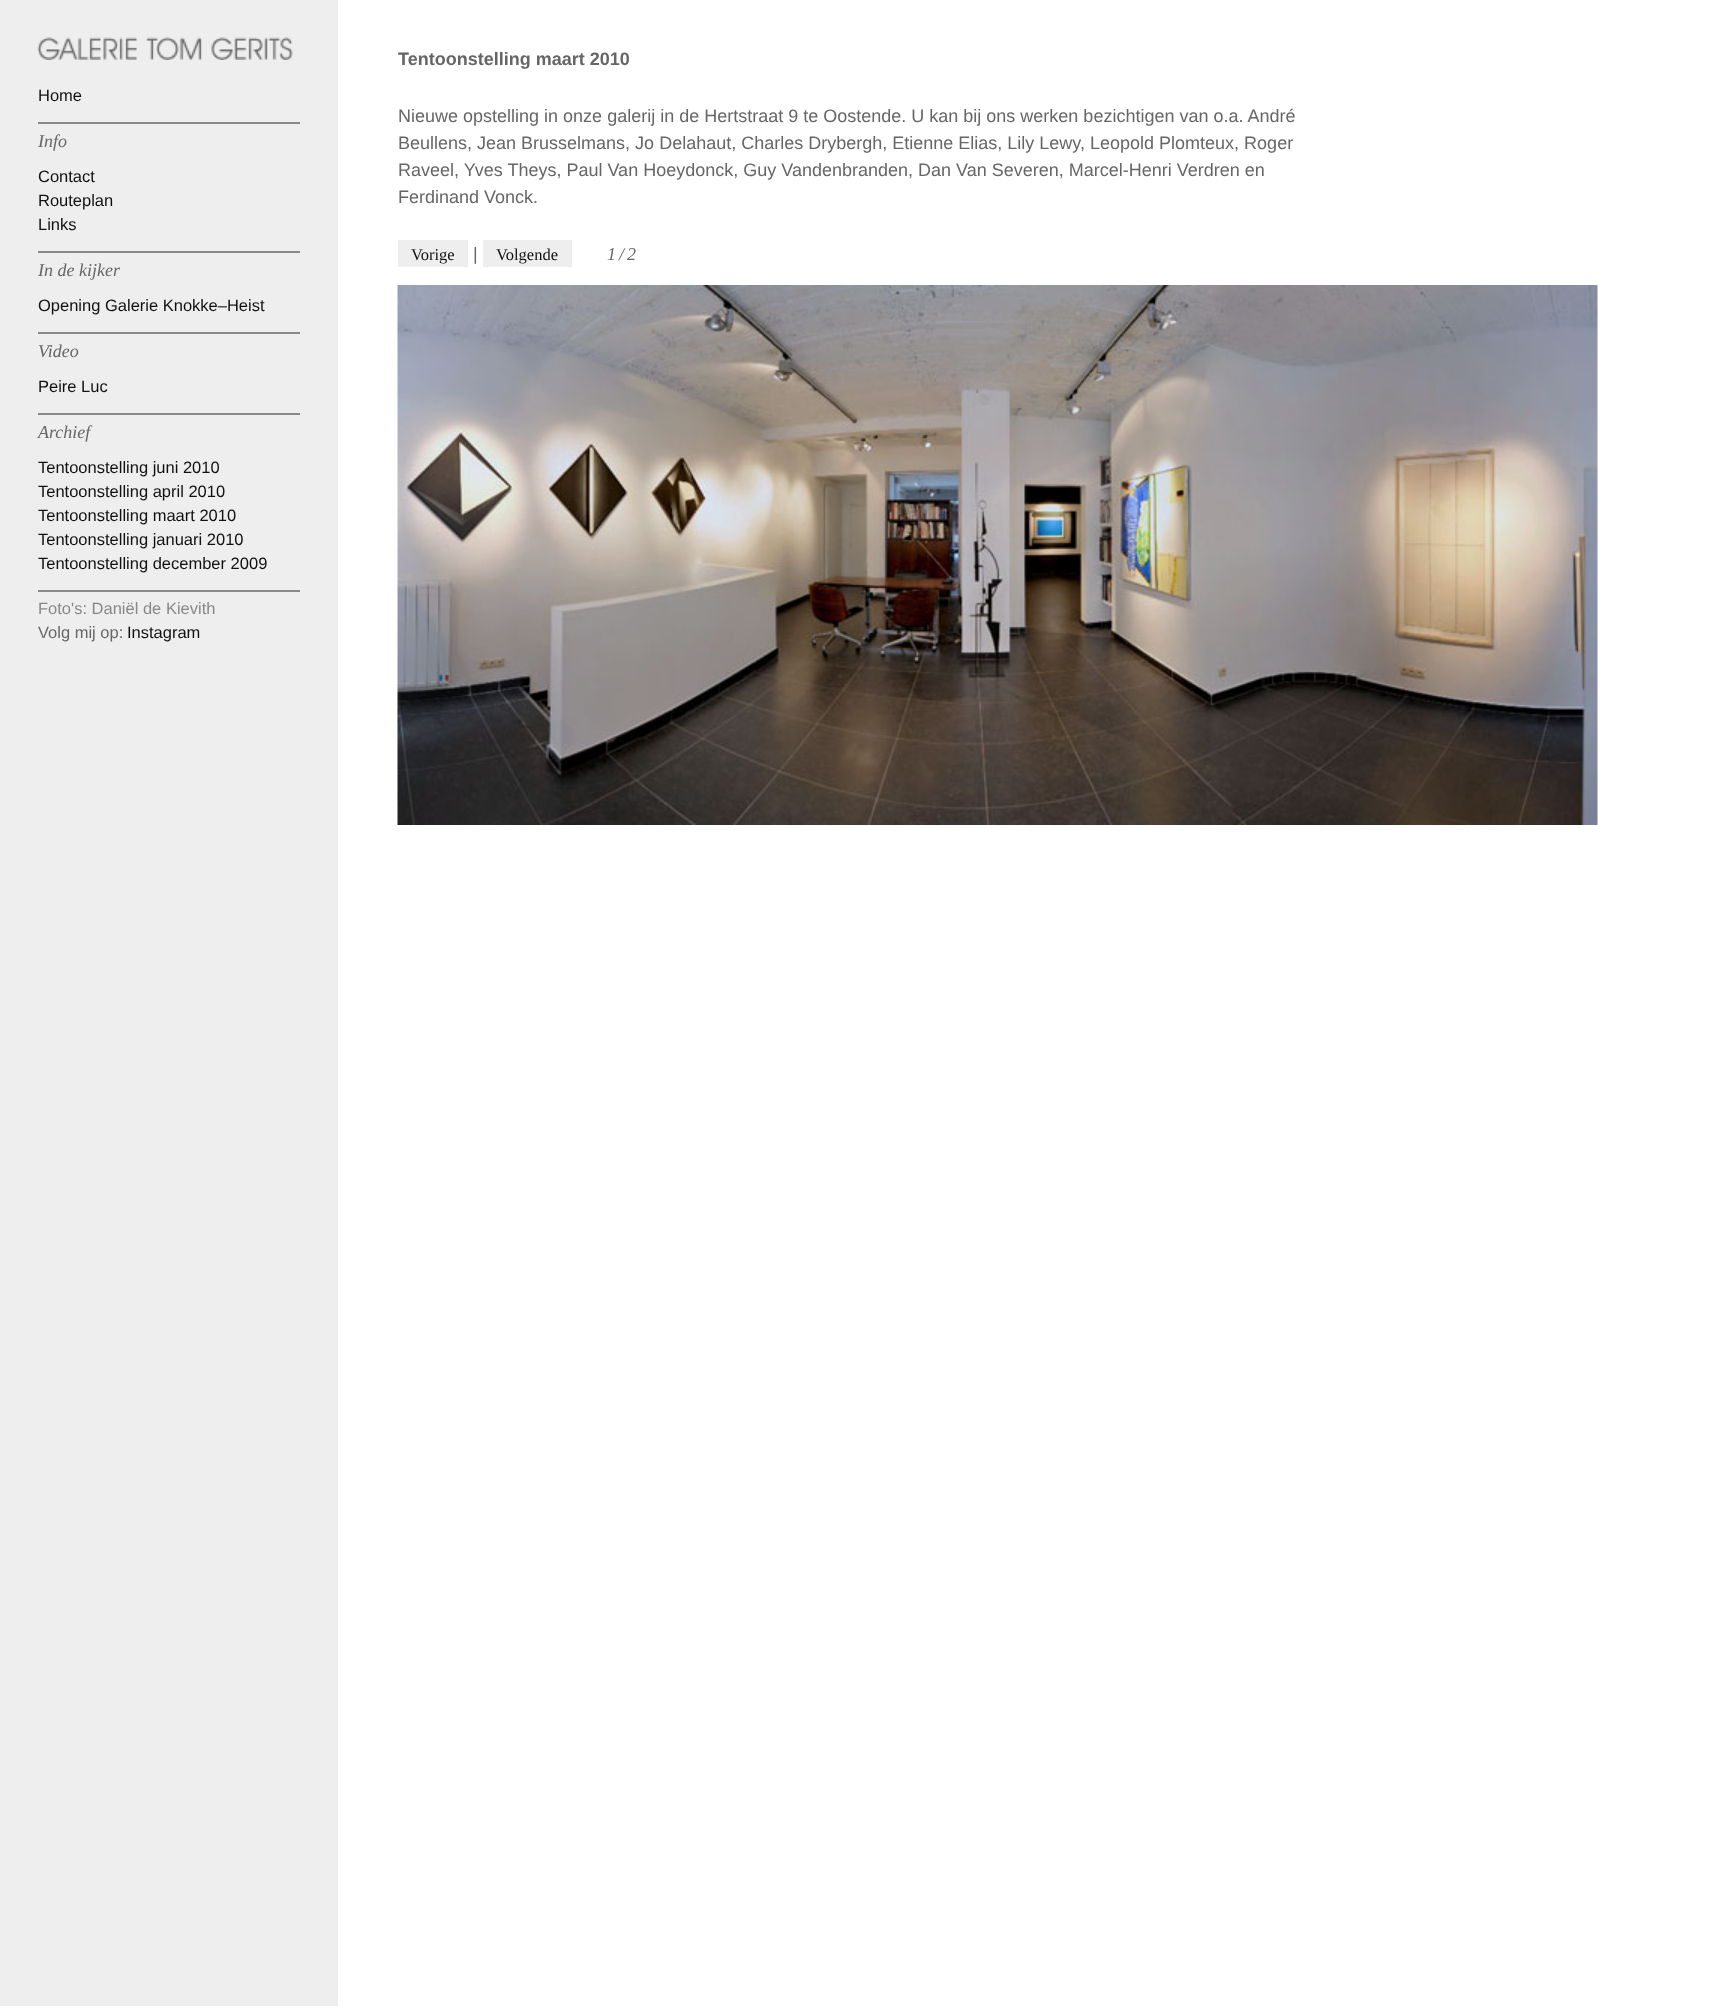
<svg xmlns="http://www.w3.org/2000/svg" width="1717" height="2006">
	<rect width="100%" height="100%" fill="#FFFFFF" />
	<rect x="0" y="0" width="338" height="2006" fill="#EEEEEE" />
	<image x="37" y="37" width="256" height="23" href="assets/img1.png" />
	<text x="38" y="101" font-family="Liberation Sans" font-size="16.5" fill="#111111">Home</text>
	<rect x="38" y="122" width="262" height="2" fill="#888888" />
	<text x="38" y="147" font-family="Liberation Serif" font-size="18" font-style="italic" fill="#666666">Info</text>
	<g font-family="Liberation Sans" font-size="16.5" fill="#111111">
		<text x="38" y="182">Contact</text>
		<text x="38" y="206">Routeplan</text>
		<text x="38" y="230">Links</text>
	</g>
	<rect x="38" y="251" width="262" height="2" fill="#888888" />
	<text x="38" y="276" font-family="Liberation Serif" font-size="18" font-style="italic" fill="#666666">In de kijker</text>
	<text x="38" y="311" font-family="Liberation Sans" font-size="16.5" fill="#111111">Opening Galerie Knokke–Heist</text>
	<rect x="38" y="332" width="262" height="2" fill="#888888" />
	<text x="38" y="357" font-family="Liberation Serif" font-size="18" font-style="italic" fill="#666666">Video</text>
	<text x="38" y="392" font-family="Liberation Sans" font-size="16.5" fill="#111111">Peire Luc</text>
	<rect x="38" y="413" width="262" height="2" fill="#888888" />
	<text x="38" y="438" font-family="Liberation Serif" font-size="18" font-style="italic" fill="#666666">Archief</text>
	<g font-family="Liberation Sans" font-size="16.5" fill="#111111">
		<text x="38" y="473">Tentoonstelling juni 2010</text>
		<text x="38" y="497">Tentoonstelling april 2010</text>
		<text x="38" y="521">Tentoonstelling maart 2010</text>
		<text x="38" y="545">Tentoonstelling januari 2010</text>
		<text x="38" y="569">Tentoonstelling december 2009</text>
	</g>
	<rect x="38" y="590" width="262" height="2" fill="#888888" />
	<text x="38" y="614" font-family="Liberation Sans" font-size="16.5" fill="#888888">Foto's: Daniël de Kievith</text>
	<text x="38" y="638" font-family="Liberation Sans" font-size="16.5" fill="#666666">Volg mij op:</text>
	<text x="127" y="638" font-family="Liberation Sans" font-size="16.5" fill="#111111">Instagram</text>
	<text x="398" y="65" font-family="Liberation Sans" font-size="18" font-weight="700" fill="#666666">Tentoonstelling maart 2010</text>
	<g font-family="Liberation Sans" font-size="18" fill="#666666">
		<text x="398" y="122">Nieuwe opstelling in onze galerij in de Hertstraat 9 te Oostende. U kan bij ons werken bezichtigen van o.a. André</text>
		<text x="398" y="149">Beullens, Jean Brusselmans, Jo Delahaut, Charles Drybergh, Etienne Elias, Lily Lewy, Leopold Plomteux, Roger</text>
		<text x="398" y="176">Raveel, Yves Theys, Paul Van Hoeydonck, Guy Vandenbranden, Dan Van Severen, Marcel-Henri Verdren en</text>
		<text x="398" y="203">Ferdinand Vonck.</text>
	</g>
	<rect x="398" y="240" width="70" height="27" fill="#EEEEEE" />
	<text x="411" y="260" font-family="Liberation Serif" font-size="16.5" fill="#111111">Vorige</text>
	<text x="473" y="260" font-family="Liberation Sans" font-size="18" fill="#666666">|</text>
	<rect x="483" y="240" width="89" height="27" fill="#EEEEEE" />
	<text x="496" y="260" font-family="Liberation Serif" font-size="16.5" fill="#111111">Volgende</text>
	<text x="607" y="260" font-family="Liberation Serif" font-size="18" font-style="italic" letter-spacing="3" fill="#666666">1/2</text>
	<image x="397" y="285" width="1201" height="540" href="assets/img2.png" />
</svg>
